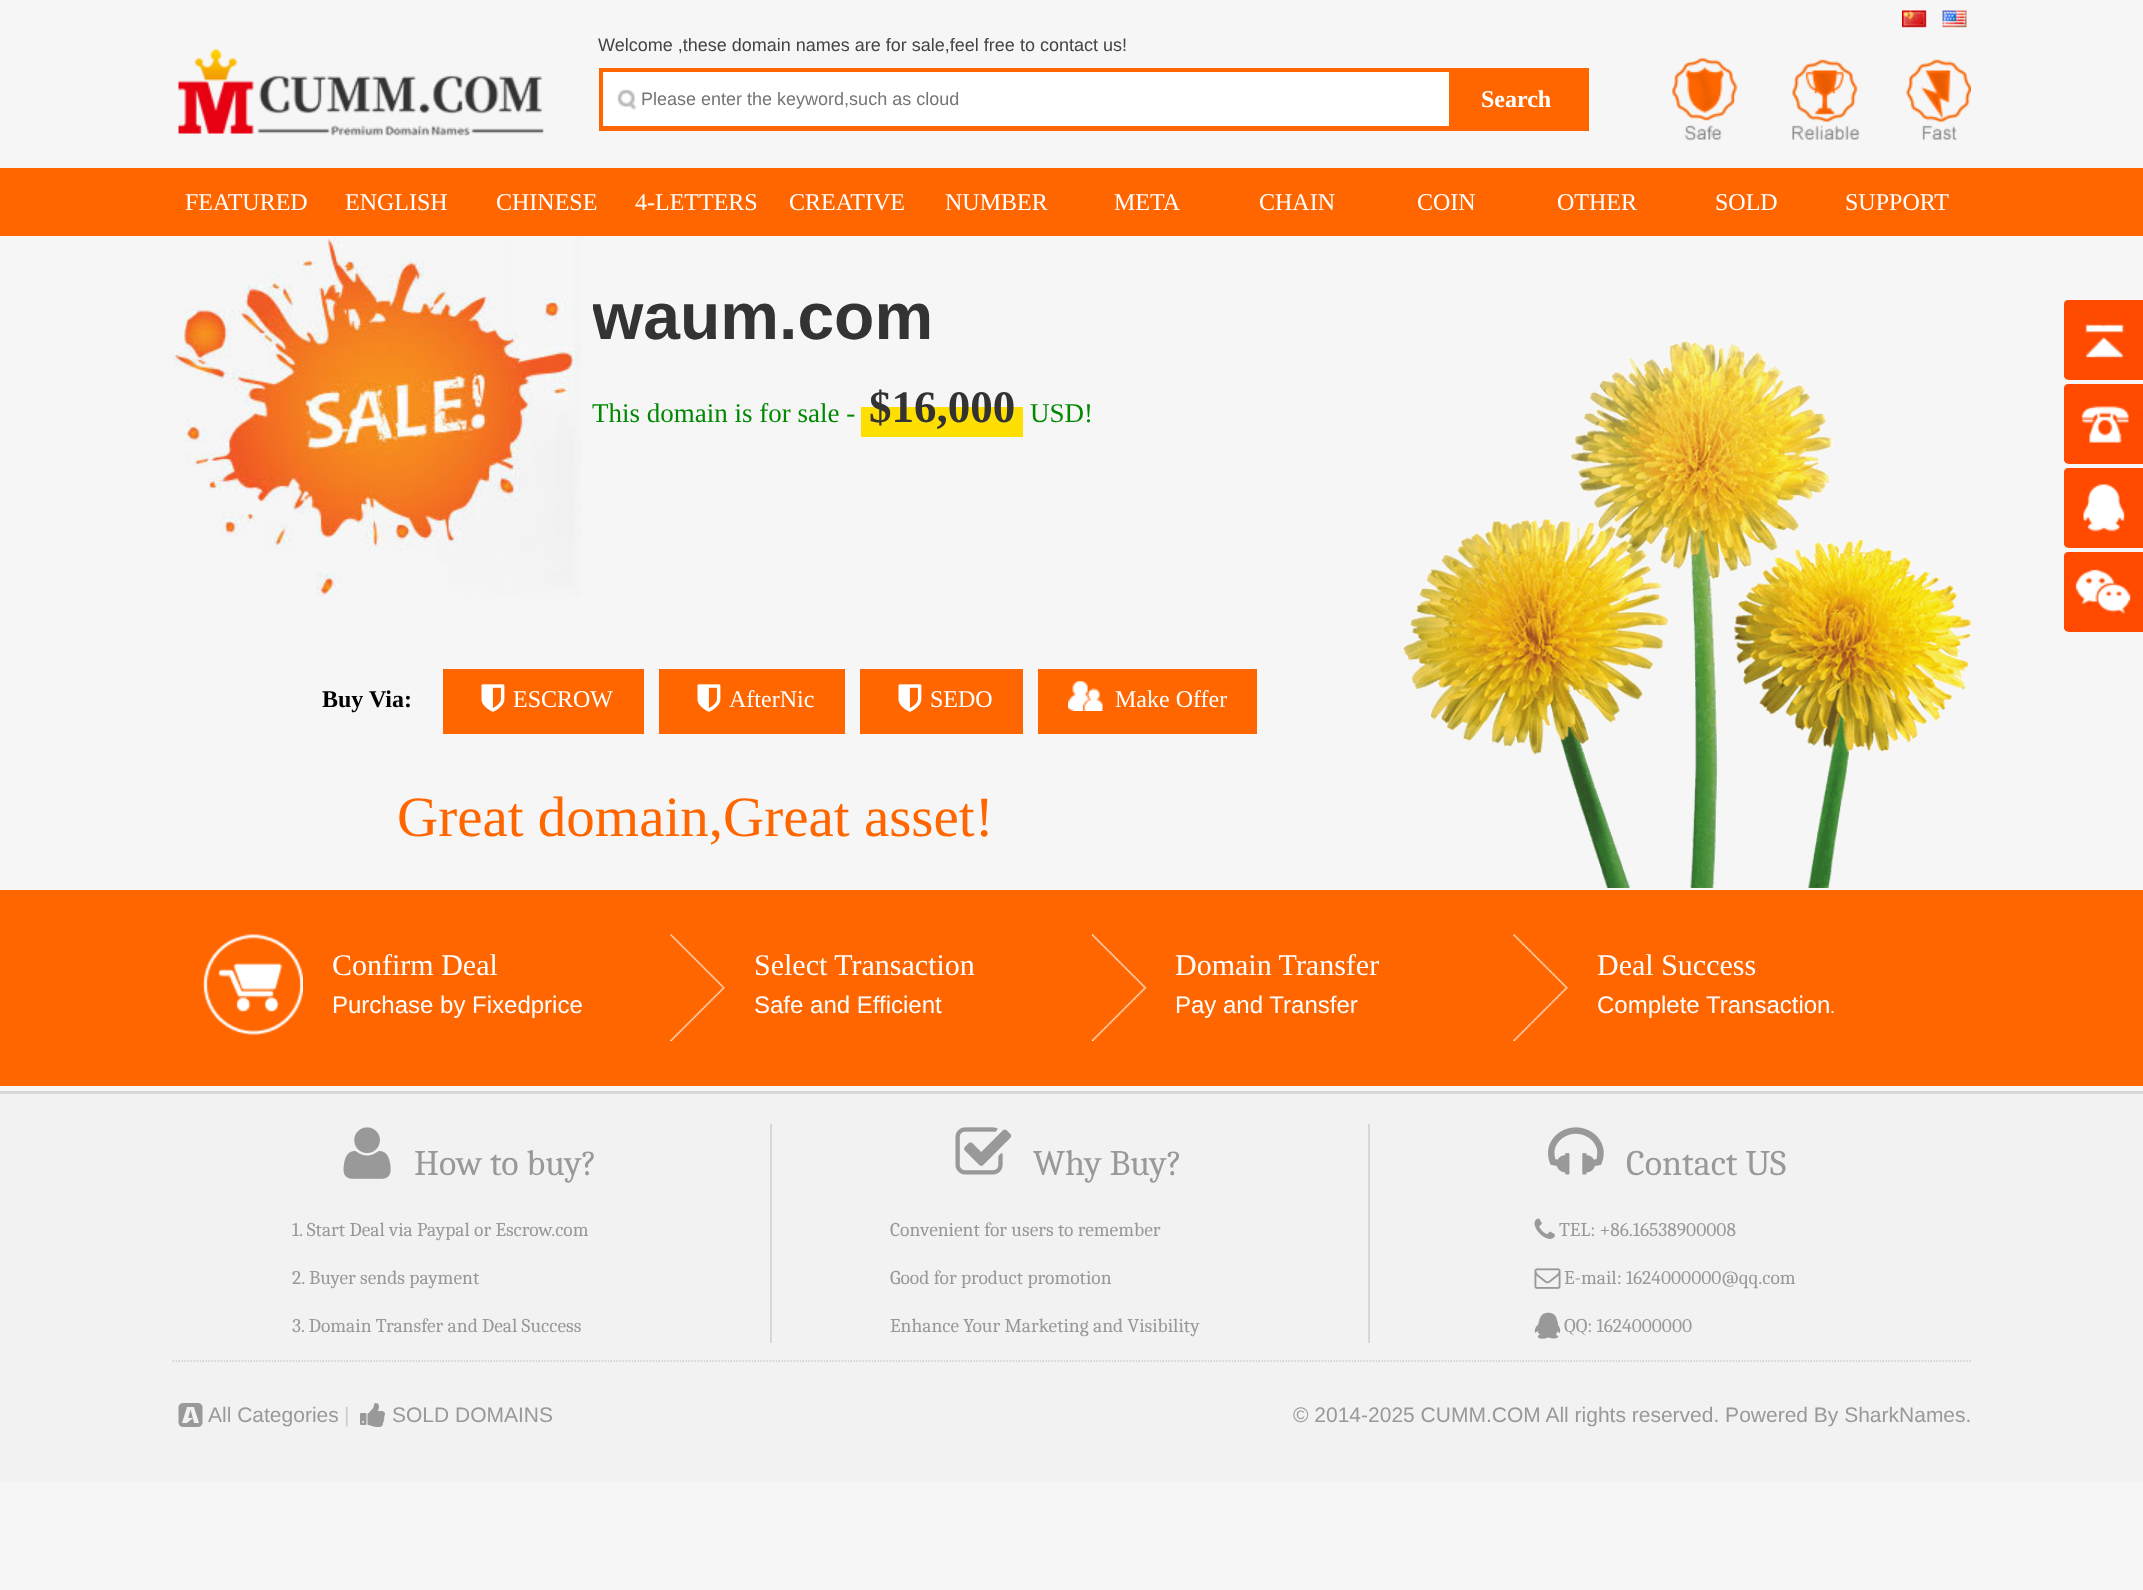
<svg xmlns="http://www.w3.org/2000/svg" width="2143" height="1590">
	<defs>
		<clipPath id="clip1"><rect x="593" y="237" width="675" height="129" /></clipPath>
	</defs>
	<rect width="100%" height="100%" fill="#F6F6F6" />
	<image x="178" y="49" width="366" height="87" href="assets/img1.png" />
	<text x="598" y="51" font-family="Liberation Sans" font-size="18" fill="#444444">Welcome ,these domain names are for sale,feel free to contact us!</text>
	<rect x="599" y="68" width="990" height="63" fill="#FF6600" />
	<rect x="603" y="72" width="846" height="54" fill="#FFFFFF" />
	<image x="617" y="89" width="20" height="21" href="assets/img2.png" />
	<text x="641" y="105" font-family="Liberation Sans" font-size="18" fill="#757575">Please enter the keyword,such as cloud</text>
	<text x="1481" y="107" font-family="Liberation Serif" font-size="24" font-weight="700" fill="#FFFFFF">Search</text>
	<image x="1902" y="10" width="25" height="18" href="assets/img3.png" />
	<image x="1942" y="10" width="25" height="18" href="assets/img4.png" />
	<image x="1672" y="58" width="299" height="83" href="assets/img5.png" />
	<rect x="0" y="168" width="2143" height="68" fill="#FF6600" />
	<g font-family="Liberation Serif" font-size="24" fill="#FFFFFF">
		<text x="185" y="210">FEATURED</text>
		<text x="345" y="210">ENGLISH</text>
		<text x="496" y="210">CHINESE</text>
		<text x="635" y="210">4-LETTERS</text>
		<text x="789" y="210">CREATIVE</text>
		<text x="945" y="210">NUMBER</text>
		<text x="1114" y="210">META</text>
		<text x="1259" y="210">CHAIN</text>
		<text x="1417" y="210">COIN</text>
		<text x="1557" y="210">OTHER</text>
		<text x="1715" y="210">SOLD</text>
		<text x="1845" y="210">SUPPORT</text>
	</g>
	<image x="172" y="237" width="409" height="360" href="assets/img6.png" />
	<g clip-path="url(#clip1)">
		<text x="592" y="339" font-family="Liberation Sans" font-size="66" font-weight="700" fill="#333333">waum.com</text>
	</g>
	<text x="592" y="422" font-family="Liberation Serif" font-size="27" fill="#008800">This domain is for sale -</text>
	<rect x="861" y="407" width="162" height="30" fill="#FFDE01" />
	<text x="869" y="422" font-family="Liberation Serif" font-size="45" font-weight="700" fill="#333333">$16,000</text>
	<text x="1030" y="422" font-family="Liberation Serif" font-size="27" fill="#008800">USD!</text>
	<image x="1403" y="340" width="568" height="548" href="assets/img7.png" />
	<text x="322" y="707" font-family="Liberation Serif" font-size="24" font-weight="700" fill="#000000">Buy Via:</text>
	<rect x="443" y="669" width="201" height="65" fill="#FF6600" />
	<image x="481" y="684" width="24" height="28" href="assets/img8.png" />
	<text x="513" y="707" font-family="Liberation Serif" font-size="24" fill="#FFFFFF">ESCROW</text>
	<rect x="659" y="669" width="186" height="65" fill="#FF6600" />
	<image x="697" y="684" width="24" height="28" href="assets/img8.png" />
	<text x="729" y="707" font-family="Liberation Serif" font-size="24" fill="#FFFFFF">AfterNic</text>
	<rect x="860" y="669" width="163" height="65" fill="#FF6600" />
	<image x="898" y="684" width="24" height="28" href="assets/img8.png" />
	<text x="930" y="707" font-family="Liberation Serif" font-size="24" fill="#FFFFFF">SEDO</text>
	<rect x="1038" y="669" width="219" height="65" fill="#FF6600" />
	<image x="1068" y="681" width="35" height="30" href="assets/img9.png" />
	<text x="1115" y="707" font-family="Liberation Serif" font-size="24" fill="#FFFFFF">Make Offer</text>
	<text x="397" y="836" font-family="Liberation Serif" font-size="57" fill="#FF6600">Great domain,Great asset!</text>
	<rect x="2064" y="300" width="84" height="80" rx="5" fill="#FF4A00" />
	<image x="2064" y="300" width="65" height="80" href="assets/img10.png" />
	<rect x="2064" y="384" width="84" height="80" rx="5" fill="#FF4A00" />
	<image x="2064" y="384" width="65" height="80" href="assets/img11.png" />
	<rect x="2064" y="468" width="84" height="80" rx="5" fill="#FF4A00" />
	<image x="2064" y="468" width="61" height="80" href="assets/img12.png" />
	<rect x="2064" y="552" width="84" height="80" rx="5" fill="#FF4A00" />
	<image x="2064" y="552" width="67" height="80" href="assets/img13.png" />
	<rect x="0" y="890" width="2143" height="196" fill="#FF6600" />
	<image x="202" y="934" width="101" height="101" href="assets/img14.png" />
	<text x="332" y="975" font-family="Liberation Serif" font-size="30" fill="#FFFFFF">Confirm Deal</text>
	<text x="332" y="1013" font-family="Liberation Sans" font-size="24" fill="#FFFFFF">Purchase by Fixedprice</text>
	<image x="670" y="934" width="55" height="107" href="assets/img15.png" />
	<text x="754" y="975" font-family="Liberation Serif" font-size="30" fill="#FFFFFF">Select Transaction</text>
	<text x="754" y="1013" font-family="Liberation Sans" font-size="24" fill="#FFFFFF">Safe and Efficient</text>
	<image x="1092" y="934" width="54" height="107" href="assets/img16.png" />
	<text x="1175" y="975" font-family="Liberation Serif" font-size="30" fill="#FFFFFF">Domain Transfer</text>
	<text x="1175" y="1013" font-family="Liberation Sans" font-size="24" fill="#FFFFFF">Pay and Transfer</text>
	<image x="1513" y="934" width="55" height="107" href="assets/img17.png" />
	<text x="1597" y="975" font-family="Liberation Serif" font-size="30" fill="#FFFFFF">Deal Success</text>
	<text x="1597" y="1013" font-family="Liberation Sans" font-size="24" fill="#FFFFFF">Complete Transaction</text>
	<text x="1830" y="1013" font-family="Liberation Sans" font-size="18" fill="#FFFFFF">.</text>
	<rect x="0" y="1094" width="2143" height="388" fill="#F2F2F2" />
	<rect x="0" y="1091" width="2143" height="3" fill="#D8D8D8" />
	<image x="343" y="1127" width="48" height="52" href="assets/img18.png" />
	<text x="414" y="1175" font-family="Caladea" font-size="36" fill="#999999">How to buy?</text>
	<g font-family="Caladea" font-size="19.5" fill="#999999">
		<text x="292" y="1236">1. Start Deal via Paypal or Escrow.com</text>
		<text x="292" y="1284">2. Buyer sends payment</text>
		<text x="292" y="1332">3. Domain Transfer and Deal Success</text>
	</g>
	<rect x="770" y="1124" width="2" height="219" fill="#D7D7D7" />
	<image x="955" y="1127" width="57" height="48" href="assets/img19.png" />
	<text x="1033" y="1175" font-family="Caladea" font-size="36" fill="#999999">Why Buy?</text>
	<g font-family="Caladea" font-size="19.5" fill="#999999">
		<text x="890" y="1236">Convenient for users to remember</text>
		<text x="890" y="1284">Good for product promotion</text>
		<text x="890" y="1332">Enhance Your Marketing and Visibility</text>
	</g>
	<rect x="1368" y="1124" width="2" height="219" fill="#D7D7D7" />
	<image x="1548" y="1127" width="56" height="48" href="assets/img20.png" />
	<text x="1626" y="1175" font-family="Caladea" font-size="36" fill="#999999">Contact US</text>
	<image x="1534" y="1218" width="21" height="21" href="assets/img21.png" />
	<text x="1559" y="1236" font-family="Caladea" font-size="19.5" fill="#999999">TEL: +86.16538900008</text>
	<image x="1534" y="1268" width="27" height="21" href="assets/img22.png" />
	<text x="1564" y="1284" font-family="Caladea" font-size="19.5" fill="#999999">E-mail: 1624000000@qq.com</text>
	<image x="1534" y="1312" width="27" height="27" href="assets/img23.png" />
	<text x="1564" y="1332" font-family="Caladea" font-size="19.5" fill="#999999">QQ: 1624000000</text>
	<path d="M172.5 1361H1972.5" fill="none" stroke="#CCCCCC" stroke-width="1.5" stroke-dasharray="1.5 1.5" />
	<image x="178" y="1403" width="25" height="24" href="assets/img24.png" />
	<text x="208" y="1422" font-family="Liberation Sans" font-size="21" fill="#999999">All Categories</text>
	<text x="344" y="1422" font-family="Liberation Sans" font-size="21" fill="#CCCCCC">|</text>
	<image x="360" y="1403" width="25" height="24" href="assets/img25.png" />
	<g font-family="Liberation Sans" font-size="21" fill="#999999">
		<text x="392" y="1422">SOLD DOMAINS</text>
		<text x="1293" y="1422">© 2014-2025 CUMM.COM All rights reserved. Powered By SharkNames.</text>
	</g>
</svg>
